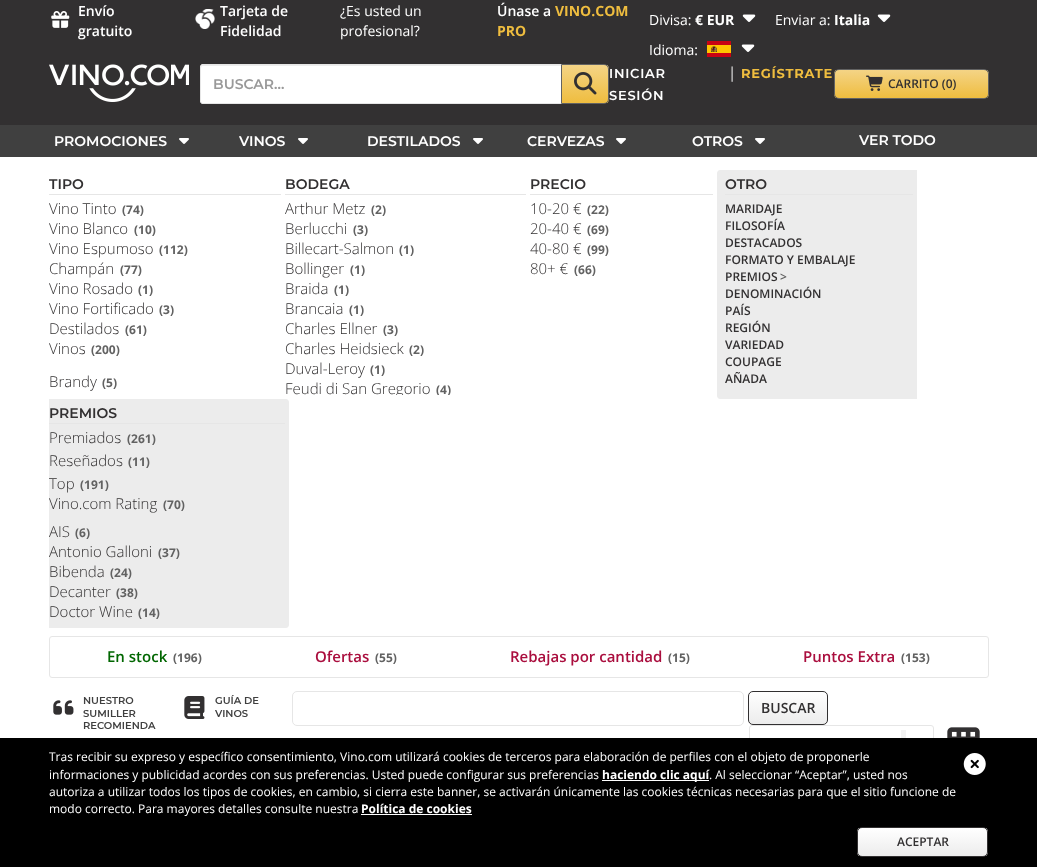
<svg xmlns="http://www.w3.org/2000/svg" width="1037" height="867">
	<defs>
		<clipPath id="clip1"><path d="M561 64H604C607 64 609 66 609 69V99C609 102 607 104 604 104H561Z" /></clipPath>
		<linearGradient id="g1" gradientUnits="userSpaceOnUse" x1="585" y1="65" x2="585" y2="103"><stop offset="0" stop-color="#F4D486" /><stop offset="1" stop-color="#EFBD3F" /></linearGradient>
		<clipPath id="clip2"><rect x="834" y="69" width="155" height="30" rx="5" /></clipPath>
		<linearGradient id="g2" gradientUnits="userSpaceOnUse" x1="912" y1="70" x2="912" y2="98"><stop offset="0" stop-color="#F4D486" /><stop offset="1" stop-color="#EFBD3F" /></linearGradient>
		<clipPath id="clip3"><rect x="285" y="200" width="241" height="195" /></clipPath>
		<clipPath id="clip4"><rect x="748" y="691" width="80" height="34" rx="5" /></clipPath>
		<linearGradient id="g3" gradientUnits="userSpaceOnUse" x1="788" y1="692" x2="788" y2="724"><stop offset="0" stop-color="#FFFFFF" /><stop offset="1" stop-color="#ECECEC" /></linearGradient>
		<clipPath id="clip5"><rect x="857" y="827" width="131" height="30" rx="5" /></clipPath>
		<linearGradient id="g4" gradientUnits="userSpaceOnUse" x1="923" y1="828" x2="923" y2="856"><stop offset="0" stop-color="#FFFFFF" /><stop offset="1" stop-color="#ECECEC" /></linearGradient>
	</defs>
	<rect width="100%" height="100%" fill="#FFFFFF" />
	<rect x="0" y="0" width="1037" height="125" fill="#323031" />
	<image x="51" y="11" width="19" height="17" href="assets/img1.png" />
	<g font-family="Open Sans" font-size="14" font-weight="600" fill="#FFFFFF">
		<text x="78" y="16">Envío</text>
		<text x="78" y="36">gratuito</text>
	</g>
	<image x="195" y="9" width="20" height="20" href="assets/img2.png" />
	<g font-family="Open Sans" font-size="14" font-weight="600" fill="#FFFFFF">
		<text x="220" y="16">Tarjeta de</text>
		<text x="220" y="36">Fidelidad</text>
	</g>
	<text x="340" y="16" font-family="Open Sans" font-size="14" fill="#FFFFFF">¿Es usted un</text>
	<text x="497" y="16" font-family="Open Sans" font-size="14" font-weight="600" fill="#FFFFFF">Únase a</text>
	<g font-family="Open Sans" font-size="14" font-weight="700" fill="#EFBD3F">
		<text x="555" y="16">VINO.COM</text>
		<text x="497" y="36">PRO</text>
	</g>
	<g font-family="Open Sans" font-size="14" fill="#FFFFFF">
		<text x="340" y="36">profesional?</text>
		<text x="649" y="25">Divisa:</text>
	</g>
	<text x="695" y="25" font-family="Open Sans" font-size="14" font-weight="700" fill="#FFFFFF">€ EUR</text>
	<image x="742" y="14" width="14" height="8" href="assets/img3.png" />
	<text x="775" y="25" font-family="Open Sans" font-size="14" fill="#FFFFFF">Enviar a:</text>
	<text x="834" y="25" font-family="Open Sans" font-size="14" font-weight="700" fill="#FFFFFF">Italia</text>
	<image x="877" y="14" width="14" height="8" href="assets/img3.png" />
	<text x="649" y="55" font-family="Open Sans" font-size="14" fill="#FFFFFF">Idioma:</text>
	<image x="707" y="41" width="24" height="16" href="assets/img4.png" />
	<image x="741" y="44" width="14" height="8" href="assets/img3.png" />
	<image x="49" y="64" width="140" height="38" href="assets/img5.png" />
	<path d="M203 64H562V104H203C201.5 104 200 102.5 200 101V67C200 65.5 201.5 64 203 64Z" fill="#FFFFFF" />
	<path d="M203 65C201 65 201 67 201 68L202 66H561V65Z" fill="#ECECEC" />
	<path d="M203 64.5H561.5V103.5H203C201.5 103.5 200.5 102.5 200.5 101V67C200.5 65.5 201.5 64.5 203 64.5Z" fill="none" stroke="#E6E6E6" />
	<text x="213" y="89" font-family="Montserrat" font-size="14" font-weight="600" fill="#999999">BUSCAR...</text>
	<g clip-path="url(#clip1)">
		<rect x="562" y="65" width="47" height="38" fill="url(#g1)" />
	</g>
	<path d="M561.5 64.5H604C606.5 64.5 608.5 66.5 608.5 69V99C608.5 101.5 606.5 103.5 604 103.5H561.5Z" fill="none" stroke="#626262" />
	<image x="574" y="72" width="23" height="23" href="assets/img6.png" />
	<g font-family="Montserrat" font-size="13" font-weight="600" letter-spacing="0.75" fill="#FFFFFF">
		<text x="609" y="78">INICIAR</text>
		<text x="609" y="100">SESIÓN</text>
	</g>
	<text x="728" y="78" font-family="Open Sans" font-size="15" fill="#E6E6E6">|</text>
	<text x="741" y="78" font-family="Montserrat" font-size="13" font-weight="700" letter-spacing="0.75" fill="#EFBD3F">REGÍSTRATE</text>
	<g clip-path="url(#clip2)">
		<rect x="834" y="70" width="155" height="28" fill="url(#g2)" />
	</g>
	<rect x="834.5" y="69.5" width="154" height="29" rx="4.5" fill="none" stroke="#626262" />
	<image x="866" y="75" width="17" height="16" href="assets/img7.png" />
	<text x="888" y="88" font-family="Open Sans" font-size="12" font-weight="600" fill="#323031">CARRITO (0)</text>
	<rect x="0" y="125" width="1037" height="32" fill="#404040" />
	<text x="54" y="146" font-family="Montserrat" font-size="14" font-weight="600" fill="#FFFFFF">PROMOCIONES</text>
	<image x="179" y="138" width="10" height="6" href="assets/img8.png" />
	<text x="239" y="146" font-family="Montserrat" font-size="14" font-weight="600" fill="#FFFFFF">VINOS</text>
	<image x="298" y="138" width="10" height="6" href="assets/img8.png" />
	<text x="367" y="146" font-family="Montserrat" font-size="14" font-weight="600" fill="#FFFFFF">DESTILADOS</text>
	<image x="473" y="138" width="10" height="6" href="assets/img8.png" />
	<text x="527" y="146" font-family="Montserrat" font-size="14" font-weight="600" fill="#FFFFFF">CERVEZAS</text>
	<image x="616" y="138" width="10" height="6" href="assets/img8.png" />
	<text x="692" y="146" font-family="Montserrat" font-size="14" font-weight="600" fill="#FFFFFF">OTROS</text>
	<image x="755" y="138" width="10" height="6" href="assets/img8.png" />
	<text x="859" y="145" font-family="Montserrat" font-size="14" font-weight="600" fill="#FFFFFF">VER TODO</text>
	<rect x="49" y="194" width="232" height="1" fill="#E6E6E6" />
	<text x="49" y="189" font-family="Montserrat" font-size="14" font-weight="600" fill="#323031">TIPO</text>
	<text x="49" y="214" font-family="Open Sans" font-size="15" font-weight="300" fill="#323031">Vino Tinto</text>
	<text x="122" y="214" font-family="Open Sans" font-size="12" font-weight="700" fill="#626262">(74)</text>
	<text x="49" y="234" font-family="Open Sans" font-size="15" font-weight="300" fill="#323031">Vino Blanco</text>
	<text x="134" y="234" font-family="Open Sans" font-size="12" font-weight="700" fill="#626262">(10)</text>
	<text x="49" y="254" font-family="Open Sans" font-size="15" font-weight="300" fill="#323031">Vino Espumoso</text>
	<text x="159" y="254" font-family="Open Sans" font-size="12" font-weight="700" fill="#626262">(112)</text>
	<text x="49" y="274" font-family="Open Sans" font-size="15" font-weight="300" fill="#323031">Champán</text>
	<text x="120" y="274" font-family="Open Sans" font-size="12" font-weight="700" fill="#626262">(77)</text>
	<text x="49" y="294" font-family="Open Sans" font-size="15" font-weight="300" fill="#323031">Vino Rosado</text>
	<text x="138" y="294" font-family="Open Sans" font-size="12" font-weight="700" fill="#626262">(1)</text>
	<text x="49" y="314" font-family="Open Sans" font-size="15" font-weight="300" fill="#323031">Vino Fortificado</text>
	<text x="159" y="314" font-family="Open Sans" font-size="12" font-weight="700" fill="#626262">(3)</text>
	<text x="49" y="334" font-family="Open Sans" font-size="15" font-weight="300" fill="#323031">Destilados</text>
	<text x="125" y="334" font-family="Open Sans" font-size="12" font-weight="700" fill="#626262">(61)</text>
	<text x="49" y="354" font-family="Open Sans" font-size="15" font-weight="300" fill="#323031">Vinos</text>
	<text x="91" y="354" font-family="Open Sans" font-size="12" font-weight="700" fill="#626262">(200)</text>
	<text x="49" y="387" font-family="Open Sans" font-size="15" font-weight="300" fill="#323031">Brandy</text>
	<text x="102" y="387" font-family="Open Sans" font-size="12" font-weight="700" fill="#626262">(5)</text>
	<rect x="285" y="194" width="241" height="1" fill="#E6E6E6" />
	<text x="285" y="189" font-family="Montserrat" font-size="14" font-weight="600" fill="#323031">BODEGA</text>
	<text x="285" y="214" font-family="Open Sans" font-size="15" font-weight="300" fill="#323031">Arthur Metz</text>
	<text x="371" y="214" font-family="Open Sans" font-size="12" font-weight="700" fill="#626262">(2)</text>
	<text x="285" y="234" font-family="Open Sans" font-size="15" font-weight="300" fill="#323031">Berlucchi</text>
	<text x="353" y="234" font-family="Open Sans" font-size="12" font-weight="700" fill="#626262">(3)</text>
	<text x="285" y="254" font-family="Open Sans" font-size="15" font-weight="300" fill="#323031">Billecart-Salmon</text>
	<text x="399" y="254" font-family="Open Sans" font-size="12" font-weight="700" fill="#626262">(1)</text>
	<text x="285" y="274" font-family="Open Sans" font-size="15" font-weight="300" fill="#323031">Bollinger</text>
	<text x="350" y="274" font-family="Open Sans" font-size="12" font-weight="700" fill="#626262">(1)</text>
	<text x="285" y="294" font-family="Open Sans" font-size="15" font-weight="300" fill="#323031">Braida</text>
	<text x="334" y="294" font-family="Open Sans" font-size="12" font-weight="700" fill="#626262">(1)</text>
	<text x="285" y="314" font-family="Open Sans" font-size="15" font-weight="300" fill="#323031">Brancaia</text>
	<text x="349" y="314" font-family="Open Sans" font-size="12" font-weight="700" fill="#626262">(1)</text>
	<text x="285" y="334" font-family="Open Sans" font-size="15" font-weight="300" fill="#323031">Charles Ellner</text>
	<text x="383" y="334" font-family="Open Sans" font-size="12" font-weight="700" fill="#626262">(3)</text>
	<text x="285" y="354" font-family="Open Sans" font-size="15" font-weight="300" fill="#323031">Charles Heidsieck</text>
	<text x="409" y="354" font-family="Open Sans" font-size="12" font-weight="700" fill="#626262">(2)</text>
	<text x="285" y="374" font-family="Open Sans" font-size="15" font-weight="300" fill="#323031">Duval-Leroy</text>
	<text x="370" y="374" font-family="Open Sans" font-size="12" font-weight="700" fill="#626262">(1)</text>
	<g clip-path="url(#clip3)">
		<text x="285" y="394" font-family="Open Sans" font-size="15" font-weight="300" fill="#323031">Feudi di San Gregorio</text>
		<text x="436" y="394" font-family="Open Sans" font-size="12" font-weight="700" fill="#626262">(4)</text>
	</g>
	<rect x="530" y="194" width="183" height="1" fill="#E6E6E6" />
	<text x="530" y="189" font-family="Montserrat" font-size="14" font-weight="600" fill="#323031">PRECIO</text>
	<text x="530" y="214" font-family="Open Sans" font-size="15" font-weight="300" fill="#323031">10-20 €</text>
	<text x="587" y="214" font-family="Open Sans" font-size="12" font-weight="700" fill="#626262">(22)</text>
	<text x="530" y="234" font-family="Open Sans" font-size="15" font-weight="300" fill="#323031">20-40 €</text>
	<text x="587" y="234" font-family="Open Sans" font-size="12" font-weight="700" fill="#626262">(69)</text>
	<text x="530" y="254" font-family="Open Sans" font-size="15" font-weight="300" fill="#323031">40-80 €</text>
	<text x="587" y="254" font-family="Open Sans" font-size="12" font-weight="700" fill="#626262">(99)</text>
	<text x="530" y="274" font-family="Open Sans" font-size="15" font-weight="300" fill="#323031">80+ €</text>
	<text x="574" y="274" font-family="Open Sans" font-size="12" font-weight="700" fill="#626262">(66)</text>
	<path d="M720 170H917V399H720C718.5 399 717 397.5 717 396V173C717 171.5 718.5 170 720 170Z" fill="#ECECEC" />
	<rect x="725" y="194" width="188" height="1" fill="#E6E6E6" />
	<text x="725" y="189" font-family="Montserrat" font-size="14" font-weight="600" fill="#323031">OTRO</text>
	<g font-family="Open Sans" font-size="12" font-weight="600" fill="#323031">
		<text x="725" y="213">MARIDAJE</text>
		<text x="725" y="230">FILOSOFÍA</text>
		<text x="725" y="247">DESTACADOS</text>
		<text x="725" y="264">FORMATO Y EMBALAJE</text>
		<text x="725" y="281">PREMIOS</text>
	</g>
	<text x="780" y="281" font-family="Open Sans" font-size="12" font-weight="600" fill="#626262">&gt;</text>
	<g font-family="Open Sans" font-size="12" font-weight="600" fill="#323031">
		<text x="725" y="298">DENOMINACIÓN</text>
		<text x="725" y="315">PAÍS</text>
		<text x="725" y="332">REGIÓN</text>
		<text x="725" y="349">VARIEDAD</text>
		<text x="725" y="366">COUPAGE</text>
		<text x="725" y="383">AÑADA</text>
	</g>
	<path d="M49 399H286C287.5 399 289 400.5 289 402V625C289 626.5 287.5 628 286 628H49Z" fill="#ECECEC" />
	<rect x="49" y="423" width="236" height="1" fill="#E6E6E6" />
	<text x="49" y="418" font-family="Montserrat" font-size="14" font-weight="600" fill="#323031">PREMIOS</text>
	<text x="49" y="443" font-family="Open Sans" font-size="15" font-weight="300" fill="#323031">Premiados</text>
	<text x="127" y="443" font-family="Open Sans" font-size="12" font-weight="700" fill="#626262">(261)</text>
	<text x="49" y="466" font-family="Open Sans" font-size="15" font-weight="300" fill="#323031">Reseñados</text>
	<text x="128" y="466" font-family="Open Sans" font-size="12" font-weight="700" fill="#626262">(11)</text>
	<text x="49" y="489" font-family="Open Sans" font-size="15" font-weight="300" fill="#323031">Top</text>
	<text x="80" y="489" font-family="Open Sans" font-size="12" font-weight="700" fill="#626262">(191)</text>
	<text x="49" y="509" font-family="Open Sans" font-size="15" font-weight="300" fill="#323031">Vino.com Rating</text>
	<text x="163" y="509" font-family="Open Sans" font-size="12" font-weight="700" fill="#626262">(70)</text>
	<text x="49" y="537" font-family="Open Sans" font-size="15" font-weight="300" fill="#323031">AIS</text>
	<text x="75" y="537" font-family="Open Sans" font-size="12" font-weight="700" fill="#626262">(6)</text>
	<text x="49" y="557" font-family="Open Sans" font-size="15" font-weight="300" fill="#323031">Antonio Galloni</text>
	<text x="158" y="557" font-family="Open Sans" font-size="12" font-weight="700" fill="#626262">(37)</text>
	<text x="49" y="577" font-family="Open Sans" font-size="15" font-weight="300" fill="#323031">Bibenda</text>
	<text x="110" y="577" font-family="Open Sans" font-size="12" font-weight="700" fill="#626262">(24)</text>
	<text x="49" y="597" font-family="Open Sans" font-size="15" font-weight="300" fill="#323031">Decanter</text>
	<text x="116" y="597" font-family="Open Sans" font-size="12" font-weight="700" fill="#626262">(38)</text>
	<text x="49" y="617" font-family="Open Sans" font-size="15" font-weight="300" fill="#323031">Doctor Wine</text>
	<text x="138" y="617" font-family="Open Sans" font-size="12" font-weight="700" fill="#626262">(14)</text>
	<rect x="49.5" y="636.5" width="939" height="41" rx="2.5" fill="none" stroke="#E6E6E6" />
	<text x="107" y="662" font-family="Open Sans" font-size="15" font-weight="600" fill="#006600">En stock</text>
	<text x="173" y="662" font-family="Open Sans" font-size="12" font-weight="700" fill="#626262">(196)</text>
	<text x="315" y="662" font-family="Open Sans" font-size="15" font-weight="600" fill="#AA0E3E">Ofertas</text>
	<text x="375" y="662" font-family="Open Sans" font-size="12" font-weight="700" fill="#626262">(55)</text>
	<text x="510" y="662" font-family="Open Sans" font-size="15" font-weight="600" fill="#AA0E3E">Rebajas por cantidad</text>
	<text x="668" y="662" font-family="Open Sans" font-size="12" font-weight="700" fill="#626262">(15)</text>
	<text x="803" y="662" font-family="Open Sans" font-size="15" font-weight="600" fill="#AA0E3E">Puntos Extra</text>
	<text x="901" y="662" font-family="Open Sans" font-size="12" font-weight="700" fill="#626262">(153)</text>
	<image x="53" y="700" width="21" height="15" href="assets/img9.png" />
	<g font-family="Montserrat" font-size="10" font-weight="600" fill="#404040">
		<text x="83" y="704">NUESTRO</text>
		<text x="83" y="717">SUMILLER</text>
		<text x="83" y="729">RECOMIENDA</text>
	</g>
	<image x="184" y="696" width="21" height="23" href="assets/img10.png" />
	<g font-family="Montserrat" font-size="10" font-weight="600" fill="#404040">
		<text x="215" y="704">GUÍA DE</text>
		<text x="215" y="717">VINOS</text>
	</g>
	<rect x="292.5" y="691.5" width="451" height="34" rx="4.5" fill="none" stroke="#E6E6E6" />
	<g clip-path="url(#clip4)">
		<rect x="748" y="692" width="80" height="32" fill="url(#g3)" />
	</g>
	<rect x="748.5" y="691.5" width="79" height="33" rx="4.5" fill="none" stroke="#323031" />
	<text x="761" y="713" font-family="Open Sans" font-size="14" font-weight="600" fill="#323031">BUSCAR</text>
	<image x="901" y="730" width="26" height="8" href="assets/img11.png" />
	<rect x="749.5" y="725.5" width="184" height="34" rx="2.5" fill="none" stroke="#E6E6E6" />
	<image x="947" y="727" width="33" height="11" href="assets/img12.png" />
	<rect x="0" y="738" width="1037" height="129" fill="#000000" />
	<text x="49" y="761" font-family="Open Sans" font-size="12" fill="#FFFFFF">Tras recibir su expreso y específico consentimiento, Vino.com utilizará cookies de terceros para elaboración de perfiles con el objeto de proponerle</text>
	<image x="963" y="753" width="23" height="22" href="assets/img13.png" />
	<text x="49" y="779" font-family="Open Sans" font-size="12" fill="#FFFFFF">informaciones y publicidad acordes con sus preferencias. Usted puede configurar sus preferencias</text>
	<rect x="602" y="780" width="107" height="1" fill="#FFFFFF" />
	<text x="602" y="779" font-family="Open Sans" font-size="12" font-weight="700" fill="#FFFFFF">haciendo clic aquí</text>
	<g font-family="Open Sans" font-size="12" fill="#FFFFFF">
		<text x="709" y="779">. Al seleccionar “Aceptar”, usted nos</text>
		<text x="49" y="796">autoriza a utilizar todos los tipos de cookies, en cambio, si cierra este banner, se activarán únicamente las cookies técnicas necesarias para que el sitio funcione de</text>
		<text x="49" y="813">modo correcto. Para mayores detalles consulte nuestra</text>
	</g>
	<text x="361" y="813" font-family="Open Sans" font-size="12" font-weight="700" fill="#FFFFFF">Política de cookies</text>
	<rect x="361" y="814" width="111" height="1" fill="#FFFFFF" />
	<g clip-path="url(#clip5)">
		<rect x="857" y="828" width="131" height="28" fill="url(#g4)" />
	</g>
	<rect x="857.5" y="827.5" width="130" height="29" rx="4.5" fill="none" stroke="#323031" />
	<text x="897" y="846" font-family="Open Sans" font-size="12" font-weight="600" fill="#323031">ACEPTAR</text>
</svg>
